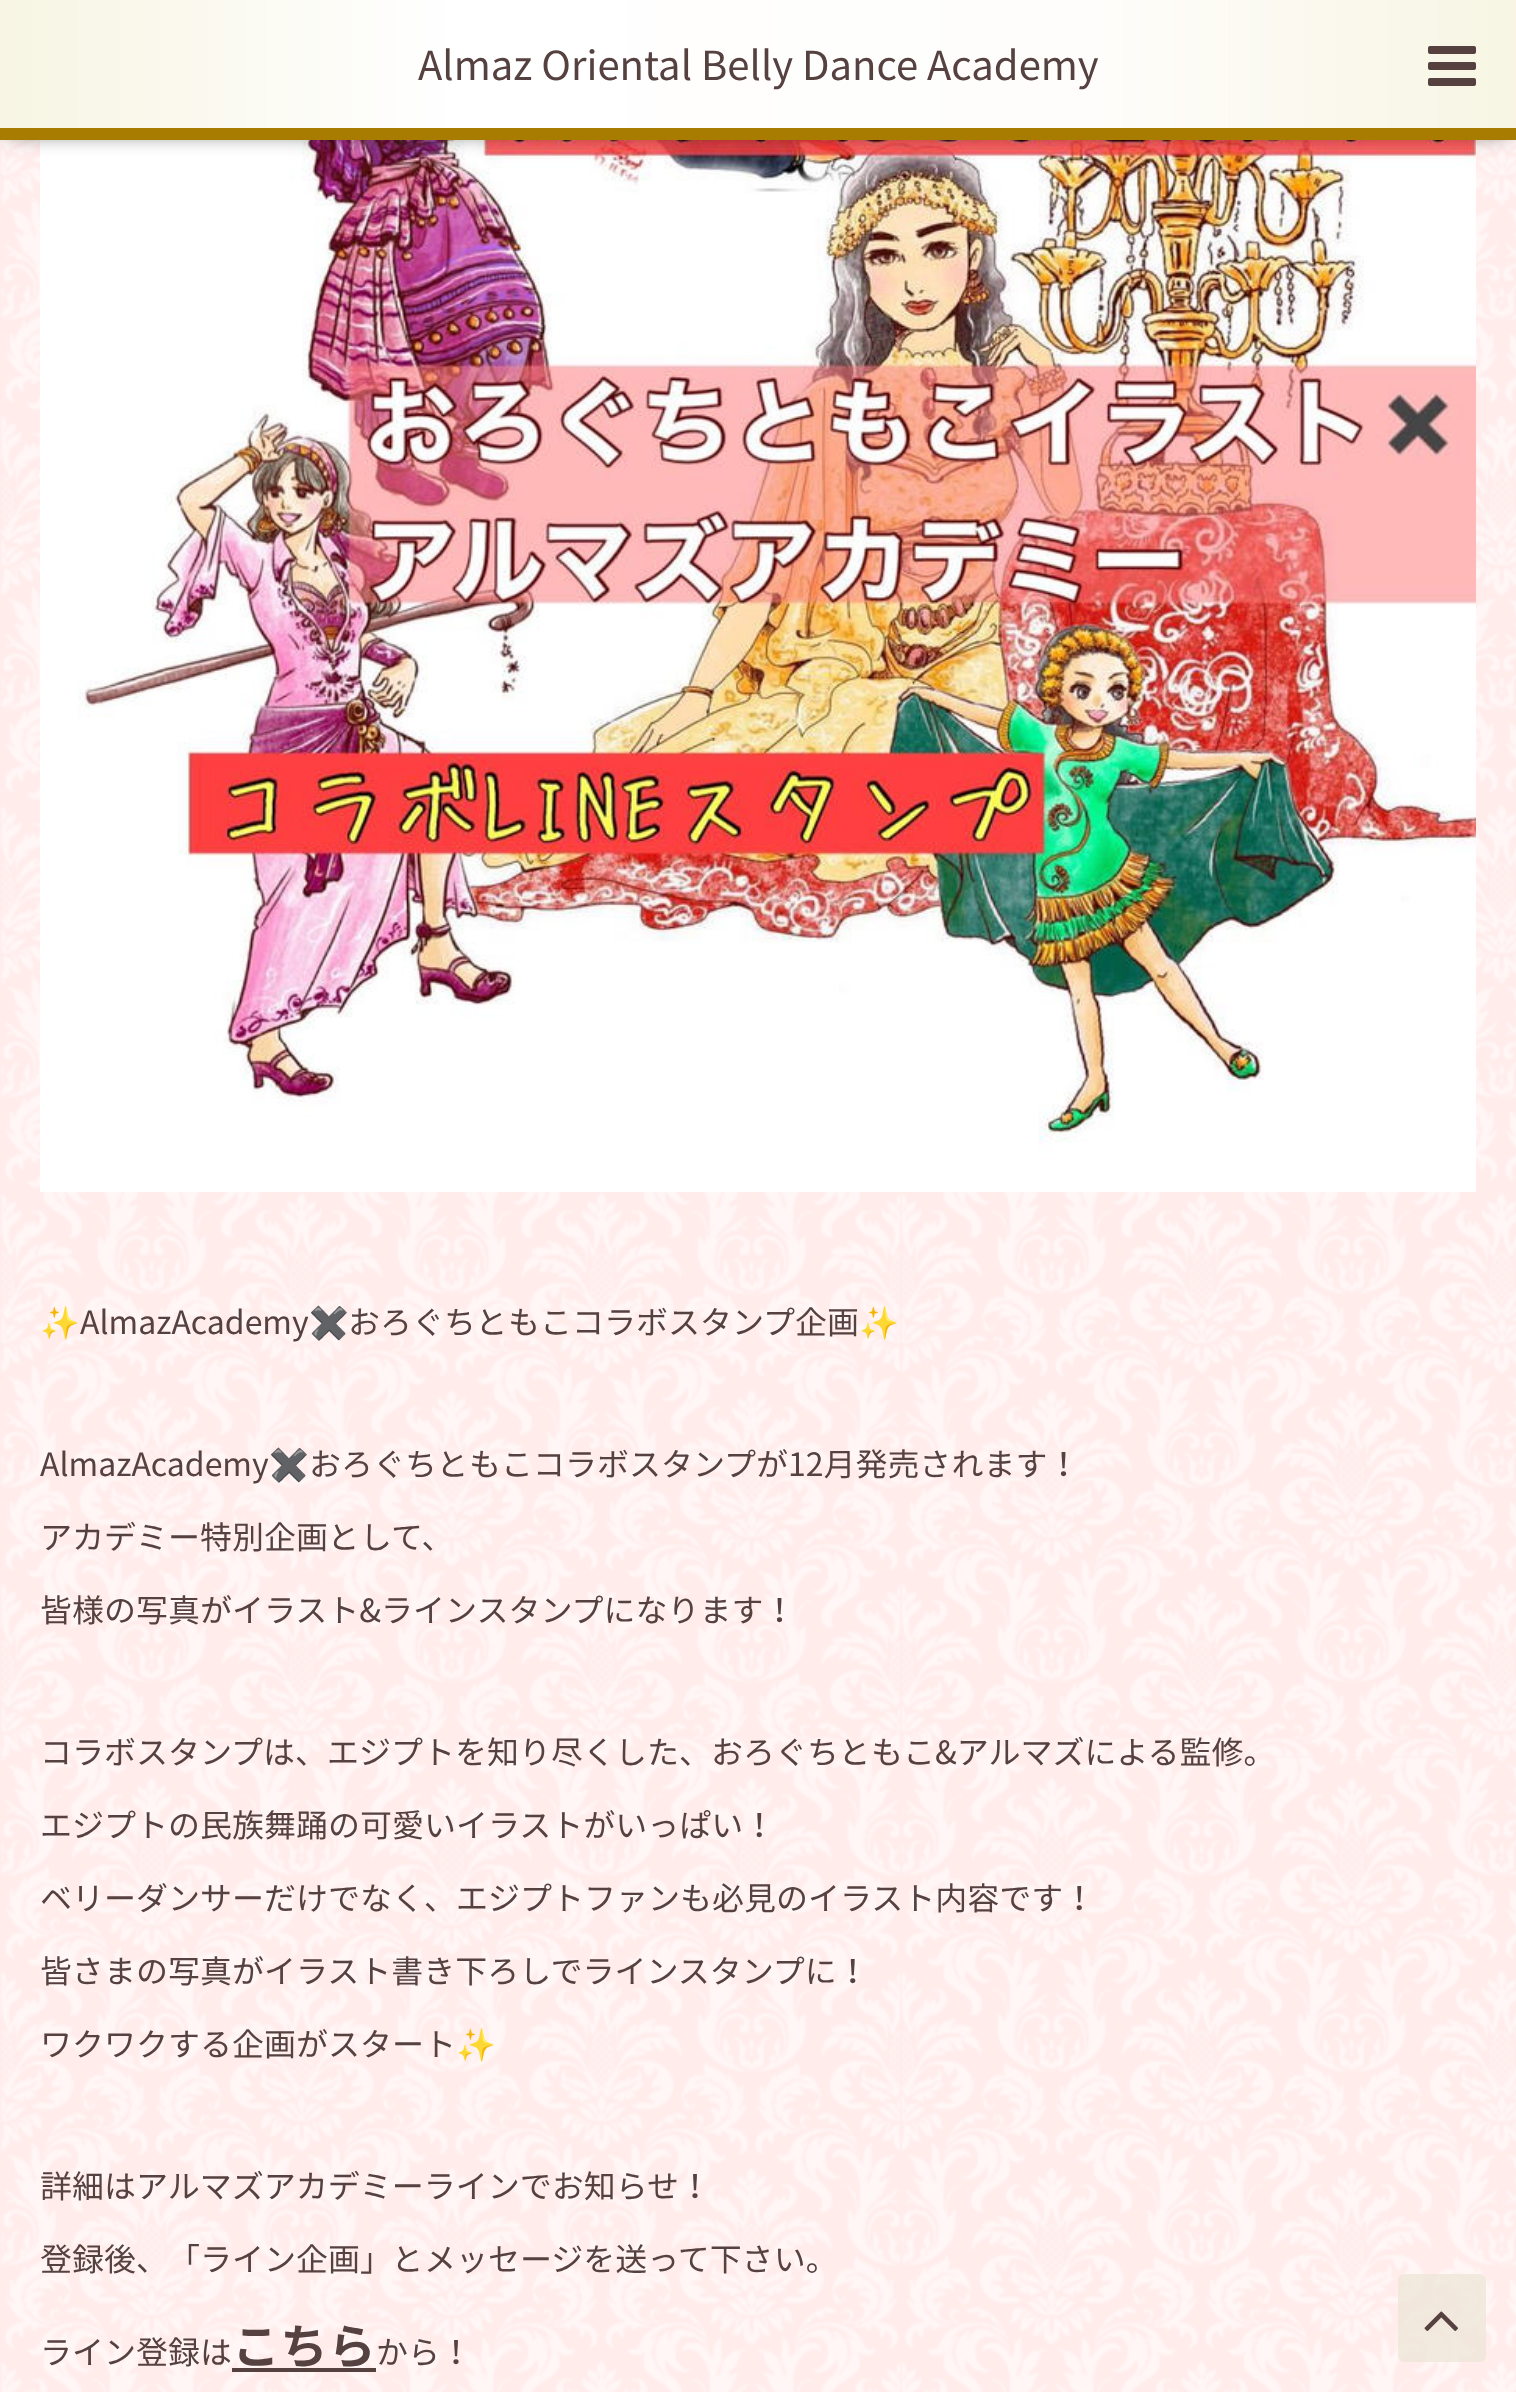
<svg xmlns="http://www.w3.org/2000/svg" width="1516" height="2392">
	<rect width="100%" height="100%" fill="#FFECEB" />
	<image x="0" y="140" width="1516" height="2252" href="assets/img1.png" />
	<image x="40" y="140" width="1436" height="1052" href="assets/img4.png" />
	<rect x="8" y="10" width="1500" height="124" fill="#000000" fill-opacity="0.6" filter="blur(10px)" />
	<image x="0" y="0" width="1516" height="128" href="assets/img2.png" />
	<rect x="0" y="128" width="1516" height="12" fill="#A87C00" />
	<text x="418" y="80" font-family="Noto Sans JP" font-size="40" fill="#564141">Almaz Oriental Belly Dance Academy</text>
	<image x="1428" y="46" width="48" height="40" href="assets/img3.png" />
	<text x="40" y="1334" font-family="Noto Color Emoji" font-size="32" fill="#564141">✨</text>
	<text x="80" y="1334" font-family="Noto Sans JP" font-size="32" fill="#564141">AlmazAcademy</text>
	<text x="309" y="1334" font-family="Noto Color Emoji" font-size="32" fill="#564141">✖️</text>
	<text x="348" y="1334" font-family="Noto Sans JP" font-size="32" fill="#564141">おろぐちともこコラボスタンプ企画</text>
	<text x="859" y="1334" font-family="Noto Color Emoji" font-size="32" fill="#564141">✨</text>
	<text x="40" y="1476" font-family="Noto Sans JP" font-size="32" fill="#564141">AlmazAcademy</text>
	<text x="269" y="1476" font-family="Noto Color Emoji" font-size="32" fill="#564141">✖️</text>
	<g font-family="Noto Sans JP" font-size="32" fill="#564141">
		<text x="309" y="1476">おろぐちともこコラボスタンプが12月発売されます！</text>
		<text x="40" y="1549">アカデミー特別企画として、</text>
		<text x="40" y="1622">皆様の写真がイラスト&amp;ラインスタンプになります！</text>
		<text x="40" y="1764">コラボスタンプは、エジプトを知り尽くした、おろぐちともこ&amp;アルマズによる監修。</text>
		<text x="40" y="1837">エジプトの民族舞踊の可愛いイラストがいっぱい！</text>
		<text x="40" y="1910">ベリーダンサーだけでなく、エジプトファンも必見のイラスト内容です！</text>
		<text x="40" y="1983">皆さまの写真がイラスト書き下ろしでラインスタンプに！</text>
		<text x="40" y="2056">ワクワクする企画がスタート</text>
	</g>
	<text x="456" y="2056" font-family="Noto Color Emoji" font-size="32" fill="#564141">✨</text>
	<g font-family="Noto Sans JP" font-size="32" fill="#564141">
		<text x="40" y="2198">詳細はアルマズアカデミーラインでお知らせ！</text>
		<text x="40" y="2271">登録後、「ライン企画」とメッセージを送って下さい。</text>
		<text x="40" y="2364">ライン登録は</text>
	</g>
	<rect x="232" y="2368" width="144" height="4" fill="#564141" />
	<text x="232" y="2364" font-family="Noto Sans JP" font-size="48" font-weight="700" fill="#564141">こちら</text>
	<text x="376" y="2364" font-family="Noto Sans JP" font-size="32" fill="#564141">から！</text>
	<rect x="1398" y="2274" width="88" height="88" rx="6" fill="#EDE6D6" fill-opacity="0.7" />
	<image x="1424" y="2311" width="34" height="20" href="assets/img5.png" />
</svg>
